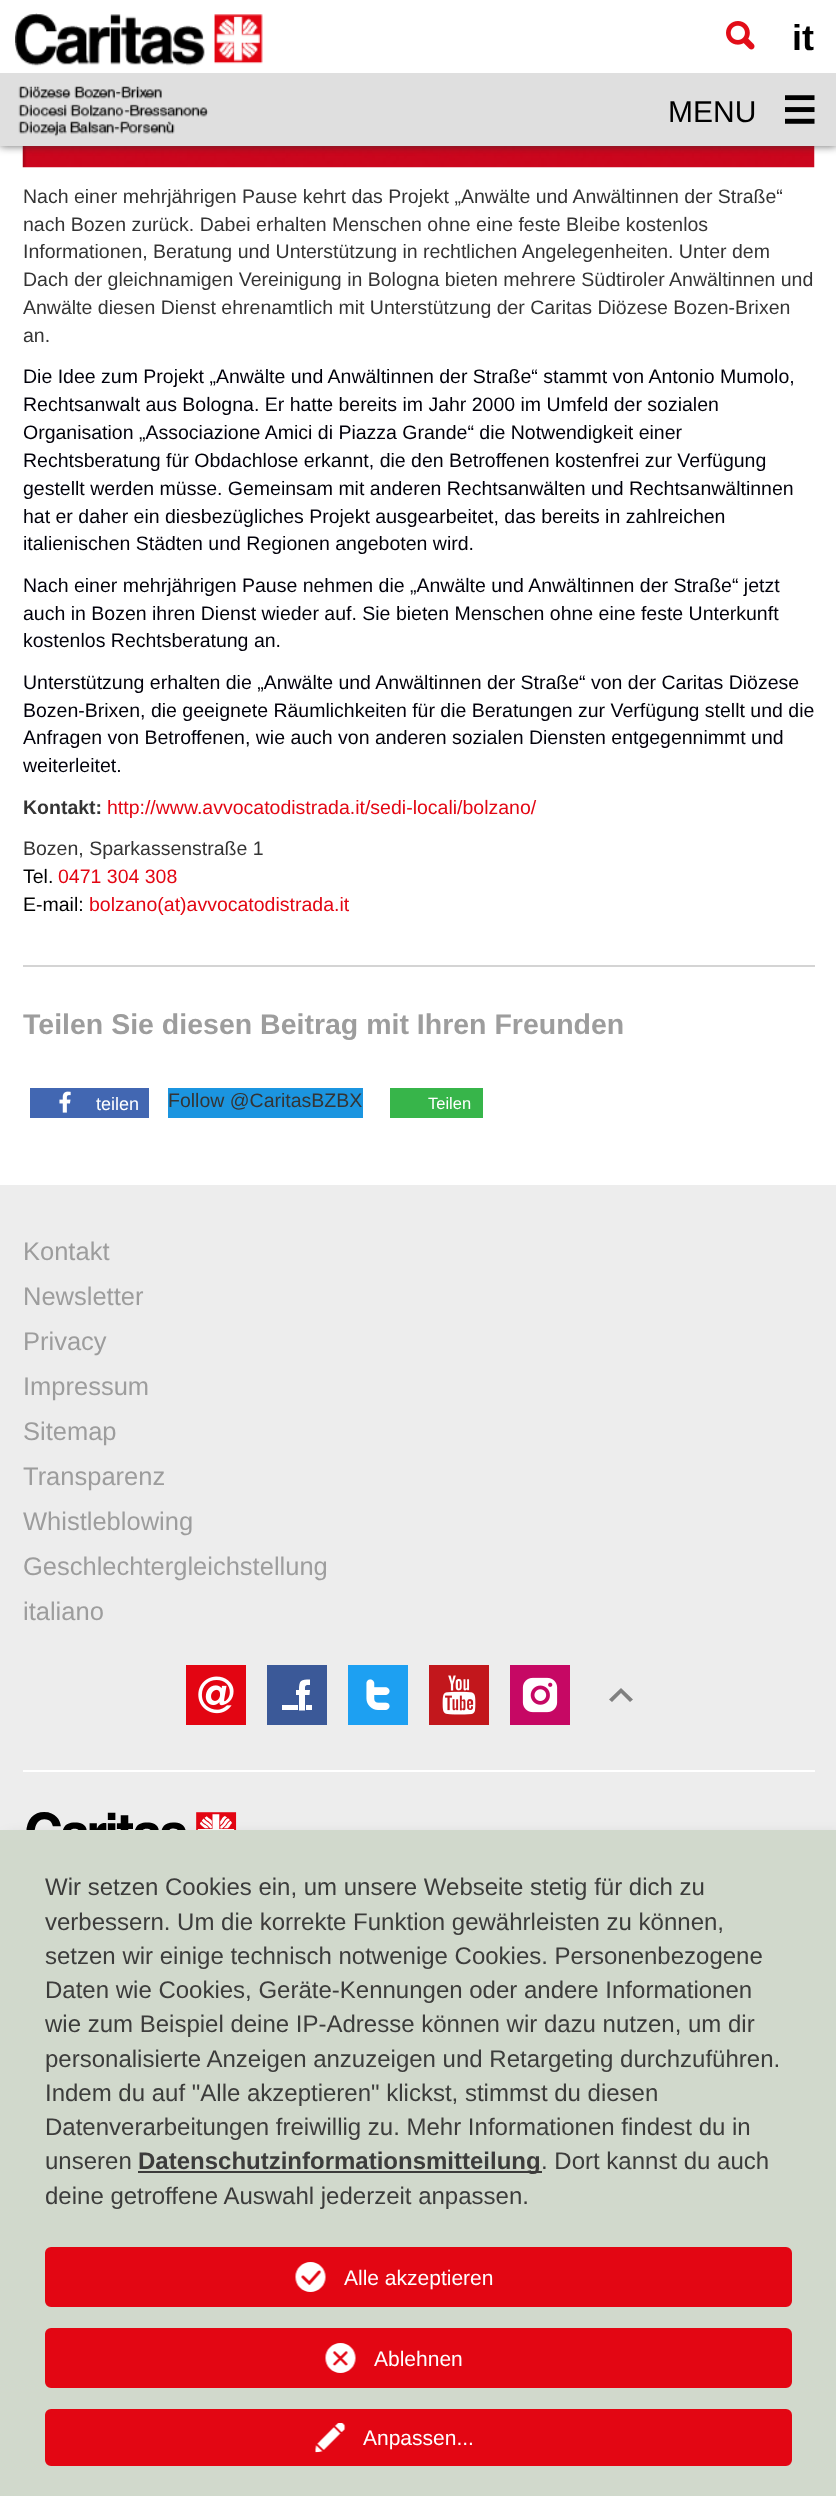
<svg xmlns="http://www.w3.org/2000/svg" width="836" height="2496">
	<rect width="100%" height="100%" fill="#FFFFFF" />
	<image x="22" y="146" width="793" height="22" href="assets/img4.png" />
	<rect x="0" y="0" width="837" height="146" fill="#323232" fill-opacity="0.75" filter="blur(4px)" />
	<rect x="0" y="0" width="836" height="73" fill="#FFFFFF" />
	<rect x="0" y="73" width="836" height="73" fill="#DFDFDF" />
	<image x="15" y="13" width="248" height="124" href="assets/img1.png" />
	<image x="726" y="21" width="29" height="29" href="assets/img2.png" />
	<text x="792" y="50" font-family="Liberation Sans" font-size="36" font-weight="700" fill="#000000">it</text>
	<image x="785" y="95" width="30" height="29" href="assets/img3.png" />
	<text x="668" y="122" font-family="Liberation Sans" font-size="30" fill="#000000">MENU</text>
	<g font-family="Liberation Sans" font-size="19.5" fill="#343434">
		<text x="23" y="203">Nach einer mehrjährigen Pause kehrt das Projekt „Anwälte und Anwältinnen der Straße“</text>
		<text x="23" y="231">nach Bozen zurück. Dabei erhalten Menschen ohne eine feste Bleibe kostenlos</text>
		<text x="23" y="258">Informationen, Beratung und Unterstützung in rechtlichen Angelegenheiten. Unter dem</text>
		<text x="23" y="286">Dach der gleichnamigen Vereinigung in Bologna bieten mehrere Südtiroler Anwältinnen und</text>
		<text x="23" y="314">Anwälte diesen Dienst ehrenamtlich mit Unterstützung der Caritas Diözese Bozen-Brixen</text>
		<text x="23" y="342">an.</text>
	</g>
	<g font-family="Liberation Sans" font-size="19.5" fill="#00000A">
		<text x="23" y="383">Die Idee zum Projekt „Anwälte und Anwältinnen der Straße“ stammt von Antonio Mumolo,</text>
		<text x="23" y="411">Rechtsanwalt aus Bologna. Er hatte bereits im Jahr 2000 im Umfeld der sozialen</text>
		<text x="23" y="439">Organisation „Associazione Amici di Piazza Grande“ die Notwendigkeit einer</text>
		<text x="23" y="467">Rechtsberatung für Obdachlose erkannt, die den Betroffenen kostenfrei zur Verfügung</text>
		<text x="23" y="495">gestellt werden müsse. Gemeinsam mit anderen Rechtsanwälten und Rechtsanwältinnen</text>
		<text x="23" y="523">hat er daher ein diesbezügliches Projekt ausgearbeitet, das bereits in zahlreichen</text>
		<text x="23" y="550">italienischen Städten und Regionen angeboten wird.</text>
		<text x="23" y="592">Nach einer mehrjährigen Pause nehmen die „Anwälte und Anwältinnen der Straße“ jetzt</text>
		<text x="23" y="620">auch in Bozen ihren Dienst wieder auf. Sie bieten Menschen ohne eine feste Unterkunft</text>
		<text x="23" y="647">kostenlos Rechtsberatung an.</text>
		<text x="23" y="689">Unterstützung erhalten die „Anwälte und Anwältinnen der Straße“ von der Caritas Diözese</text>
		<text x="23" y="717">Bozen-Brixen, die geeignete Räumlichkeiten für die Beratungen zur Verfügung stellt und die</text>
		<text x="23" y="744">Anfragen von Betroffenen, wie auch von anderen sozialen Diensten entgegennimmt und</text>
		<text x="23" y="772">weiterleitet.</text>
	</g>
	<text x="23" y="814" font-family="Liberation Sans" font-size="19.5" font-weight="700" fill="#343434">Kontakt:</text>
	<text x="107" y="814" font-family="Liberation Sans" font-size="19.5" fill="#E30613">http://www.avvocatodistrada.it/sedi-locali/bolzano/</text>
	<text x="23" y="855" font-family="Liberation Sans" font-size="19.5" fill="#343434">Bozen, Sparkassenstraße 1</text>
	<text x="23" y="883" font-family="Liberation Sans" font-size="19.5" fill="#000000">Tel.</text>
	<text x="58" y="883" font-family="Liberation Sans" font-size="19.5" fill="#E30613">0471 304 308</text>
	<text x="23" y="911" font-family="Liberation Sans" font-size="19.5" fill="#000000">E-mail:</text>
	<text x="89" y="911" font-family="Liberation Sans" font-size="19.5" fill="#E30613">bolzano(at)avvocatodistrada.it</text>
	<rect x="23" y="965" width="792" height="2" fill="#D4D4D4" />
	<text x="23" y="1034" font-family="Liberation Sans" font-size="28.5" font-weight="700" fill="#9D9D9D">Teilen Sie diesen Beitrag mit Ihren Freunden</text>
	<rect x="30" y="1088" width="119" height="30" fill="#4267B2" />
	<image x="59" y="1091" width="12" height="22" href="assets/img5.png" />
	<text x="96" y="1110" font-family="Liberation Sans" font-size="18" fill="#FFFFFF">teilen</text>
	<rect x="168" y="1088" width="195" height="30" fill="#1B95E0" />
	<text x="168" y="1107" font-family="Liberation Sans" font-size="19.5" fill="#343434">Follow @CaritasBZBX</text>
	<rect x="390" y="1088" width="93" height="30" fill="#37B54A" />
	<text x="428" y="1109" font-family="Liberation Sans" font-size="16.5" fill="#FFFFFF">Teilen</text>
	<rect x="0" y="1185" width="836" height="645" fill="#EDEDED" />
	<g font-family="Liberation Sans" font-size="25.5" fill="#9D9D9D">
		<text x="23" y="1260">Kontakt</text>
		<text x="23" y="1305">Newsletter</text>
		<text x="23" y="1350">Privacy</text>
		<text x="23" y="1395">Impressum</text>
		<text x="23" y="1440">Sitemap</text>
		<text x="23" y="1485">Transparenz</text>
		<text x="23" y="1530">Whistleblowing</text>
		<text x="23" y="1575">Geschlechtergleichstellung</text>
		<text x="23" y="1620">italiano</text>
	</g>
	<image x="186" y="1665" width="60" height="60" href="assets/img6.png" />
	<rect x="267" y="1665" width="60" height="60" fill="#3B5998" />
	<image x="348" y="1665" width="60" height="60" href="assets/img7.png" />
	<image x="429" y="1665" width="60" height="60" href="assets/img8.png" />
	<image x="510" y="1665" width="60" height="60" href="assets/img9.png" />
	<rect x="282" y="1705" width="16" height="5" fill="#FFFFFF" />
	<path d="M305 1710.5H299V1695H296V1690H299C299 1680 301 1679.5 310 1679.5V1685C305 1685 305 1685 305 1690H310L309.5 1695H305Z" fill="#FFFFFF" />
	<path d="M609 1699.5L612 1702L621 1693L630 1702L633 1699.5L621 1688Z" fill="#808080" />
	<rect x="306" y="1705" width="6" height="5" fill="#FFFFFF" />
	<rect x="23" y="1770" width="792" height="2" fill="#FFFFFF" />
	<image x="26" y="1812" width="211" height="18" href="assets/img10.png" />
	<rect x="8" y="1838" width="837" height="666" fill="#000000" fill-opacity="0.19" filter="blur(7.5px)" />
	<rect x="0" y="1830" width="836" height="666" fill="#D1D9CC" />
	<g font-family="Liberation Sans" font-size="24" fill="#3C3C3B">
		<text x="45" y="1895">Wir setzen Cookies ein, um unsere Webseite stetig für dich zu</text>
		<text x="45" y="1930">verbessern. Um die korrekte Funktion gewährleisten zu können,</text>
		<text x="45" y="1964">setzen wir einige technisch notwenige Cookies. Personenbezogene</text>
		<text x="45" y="1998">Daten wie Cookies, Geräte-Kennungen oder andere Informationen</text>
		<text x="45" y="2032">wie zum Beispiel deine IP-Adresse können wir dazu nutzen, um dir</text>
		<text x="45" y="2067">personalisierte Anzeigen anzuzeigen und Retargeting durchzuführen.</text>
		<text x="45" y="2101">Indem du auf "Alle akzeptieren" klickst, stimmst du diesen</text>
		<text x="45" y="2135">Datenverarbeitungen freiwillig zu. Mehr Informationen findest du in</text>
		<text x="45" y="2169">unseren</text>
	</g>
	<rect x="138" y="2171" width="404" height="2" fill="#3C3C3B" />
	<text x="138" y="2169" font-family="Liberation Sans" font-size="24" font-weight="700" fill="#3C3C3B">Datenschutzinformationsmitteilung</text>
	<g font-family="Liberation Sans" font-size="24" fill="#3C3C3B">
		<text x="541" y="2169">. Dort kannst du auch</text>
		<text x="45" y="2204">deine getroffene Auswahl jederzeit anpassen.</text>
	</g>
	<rect x="46.5" y="2248.5" width="744" height="57" rx="4.5" fill="#E30613" stroke="#E30613" stroke-width="3" />
	<image x="295" y="2262" width="31" height="30" href="assets/img11.png" />
	<text x="344" y="2285" font-family="Liberation Sans" font-size="21" fill="#FFFFFF">Alle akzeptieren</text>
	<rect x="46.5" y="2329.5" width="744" height="57" rx="4.5" fill="#E30613" stroke="#E30613" stroke-width="3" />
	<image x="325" y="2343" width="31" height="30" href="assets/img12.png" />
	<text x="374" y="2366" font-family="Liberation Sans" font-size="21" fill="#FFFFFF">Ablehnen</text>
	<rect x="46.5" y="2410.5" width="744" height="54" rx="4.5" fill="#E30613" stroke="#E30613" stroke-width="3" />
	<image x="315" y="2423" width="31" height="30" href="assets/img13.png" />
	<text x="363" y="2445" font-family="Liberation Sans" font-size="21" fill="#FFFFFF">Anpassen...</text>
</svg>
